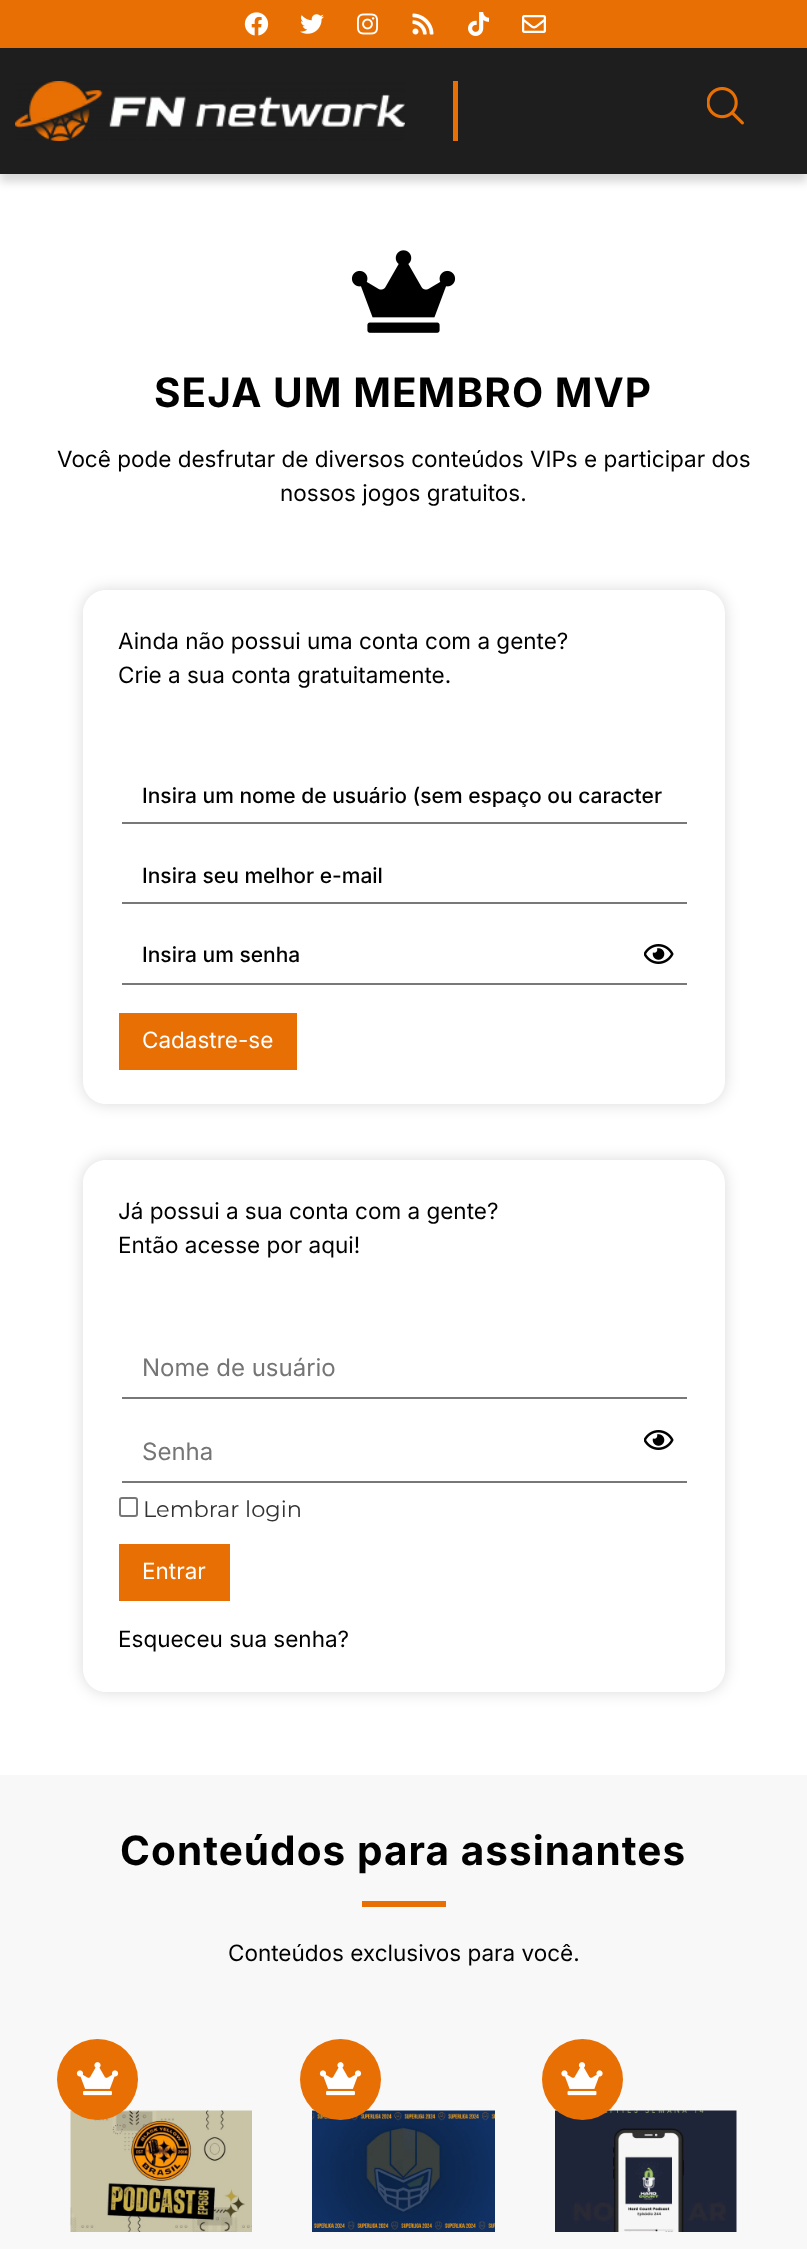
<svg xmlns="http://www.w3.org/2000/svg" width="807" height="2249">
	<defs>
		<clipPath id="clip1"><path d="M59 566H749V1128H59ZM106 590H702C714.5 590 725 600.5 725 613V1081C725 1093.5 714.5 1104 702 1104H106C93.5 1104 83 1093.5 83 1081V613C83 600.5 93.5 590 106 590Z" clip-rule="evenodd" /></clipPath>
		<clipPath id="clip2"><rect x="143" y="782" width="522" height="25" /></clipPath>
		<clipPath id="clip3"><path d="M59 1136H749V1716H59ZM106 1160H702C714.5 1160 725 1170.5 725 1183V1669C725 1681.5 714.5 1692 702 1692H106C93.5 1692 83 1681.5 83 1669V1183C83 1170.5 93.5 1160 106 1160Z" clip-rule="evenodd" /></clipPath>
	</defs>
	<rect width="100%" height="100%" fill="#FFFFFF" />
	<rect x="0" y="0" width="807" height="48" fill="#E86F04" />
	<image x="244" y="12" width="25" height="24" href="assets/img1.png" />
	<image x="300" y="14" width="24" height="20" href="assets/img2.png" />
	<image x="357" y="13" width="22" height="22" href="assets/img3.png" />
	<image x="412" y="13" width="22" height="22" href="assets/img4.png" />
	<image x="468" y="12" width="21" height="24" href="assets/img5.png" />
	<image x="522" y="15" width="24" height="18" href="assets/img6.png" />
	<rect x="0" y="56" width="807" height="126" fill="#000000" fill-opacity="0.15" filter="blur(4px)" />
	<rect x="0" y="48" width="807" height="126" fill="#1E1E1E" />
	<rect x="453" y="81" width="5" height="60" fill="#E86F04" />
	<image x="15" y="81" width="390" height="60" href="assets/img7.png" />
	<image x="707" y="87" width="37" height="38" href="assets/img8.png" />
	<image x="351" y="250" width="105" height="83" href="assets/img9.png" />
	<text x="154" y="407" font-family="Inter" font-size="40.5" font-weight="700" letter-spacing="1.05" fill="#000000">SEJA UM MEMBRO MVP</text>
	<g font-family="Inter" font-size="22.5" fill="#000000">
		<text x="57" y="467">Você pode desfrutar de diversos conteúdos VIPs e participar dos</text>
		<text x="280" y="501">nossos jogos gratuitos.</text>
	</g>
	<g clip-path="url(#clip1)">
		<rect x="83" y="590" width="642" height="514" rx="23" fill="#000000" fill-opacity="0.15" filter="blur(7.5px)" />
	</g>
	<g font-family="Inter" font-size="22.5" fill="#000000">
		<text x="118" y="649">Ainda não possui uma conta com a gente?</text>
		<text x="118" y="683">Crie a sua conta gratuitamente.</text>
	</g>
	<rect x="122" y="822" width="565" height="2" fill="#787878" />
	<g clip-path="url(#clip2)">
		<text x="142" y="803" font-family="Inter" font-size="21" font-weight="500" fill="#000000">Insira um nome de usuário (sem espaço ou caracter</text>
	</g>
	<rect x="122" y="902" width="565" height="2" fill="#787878" />
	<text x="142" y="883" font-family="Inter" font-size="21" font-weight="500" fill="#000000">Insira seu melhor e-mail</text>
	<rect x="122" y="983" width="565" height="2" fill="#787878" />
	<text x="142" y="962" font-family="Inter" font-size="21" font-weight="500" fill="#000000">Insira um senha</text>
	<image x="644" y="944" width="30" height="20" href="assets/img10.png" />
	<rect x="119" y="1013" width="178" height="57" fill="#E86F04" />
	<text x="142" y="1048" font-family="Inter" font-size="22.5" fill="#FFFFFF">Cadastre-se</text>
	<g clip-path="url(#clip3)">
		<rect x="83" y="1160" width="642" height="532" rx="23" fill="#000000" fill-opacity="0.15" filter="blur(7.5px)" />
	</g>
	<g font-family="Inter" font-size="22.5" fill="#000000">
		<text x="118" y="1219">Já possui a sua conta com a gente?</text>
		<text x="118" y="1253">Então acesse por aqui!</text>
	</g>
	<rect x="122" y="1397" width="565" height="2" fill="#787878" />
	<text x="142" y="1376" font-family="Inter" font-size="24" fill="#757575">Nome de usuário</text>
	<rect x="122" y="1481" width="565" height="2" fill="#787878" />
	<text x="142" y="1460" font-family="Inter" font-size="24" fill="#757575">Senha</text>
	<image x="644" y="1430" width="30" height="20" href="assets/img10.png" />
	<rect x="120" y="1498" width="17" height="18" rx="2" fill="none" stroke="#767676" stroke-width="2" />
	<text x="143" y="1517" font-family="Montserrat" font-size="22.5" fill="#333333">Lembrar login</text>
	<rect x="119" y="1544" width="111" height="57" fill="#E86F04" />
	<text x="142" y="1579" font-family="Inter" font-size="22.5" fill="#FFFFFF">Entrar</text>
	<text x="118" y="1647" font-family="Inter" font-size="22.5" fill="#000000">Esqueceu sua senha?</text>
	<rect x="0" y="1775" width="807" height="474" fill="#F8F8F8" />
	<text x="120" y="1865" font-family="Inter" font-size="40.5" font-weight="700" letter-spacing="1.05" fill="#000000">Conteúdos para assinantes</text>
	<rect x="362" y="1901" width="84" height="6" fill="#E86F04" />
	<text x="228" y="1961" font-family="Inter" font-size="22.5" fill="#000000">Conteúdos exclusivos para você.</text>
	<image x="70" y="2110" width="182" height="122" href="assets/img12.png" />
	<circle cx="97.5" cy="2079.5" r="40.5" fill="#E86F04" />
	<image x="76" y="2062" width="43" height="34" href="assets/img11.png" />
	<image x="312" y="2110" width="183" height="122" href="assets/img13.png" />
	<circle cx="340.5" cy="2079.5" r="40.5" fill="#E86F04" />
	<image x="319" y="2062" width="43" height="34" href="assets/img11.png" />
	<image x="555" y="2110" width="182" height="122" href="assets/img15.png" />
	<circle cx="582.5" cy="2079.5" r="40.5" fill="#E86F04" />
	<image x="561" y="2062" width="42" height="34" href="assets/img14.png" />
</svg>
